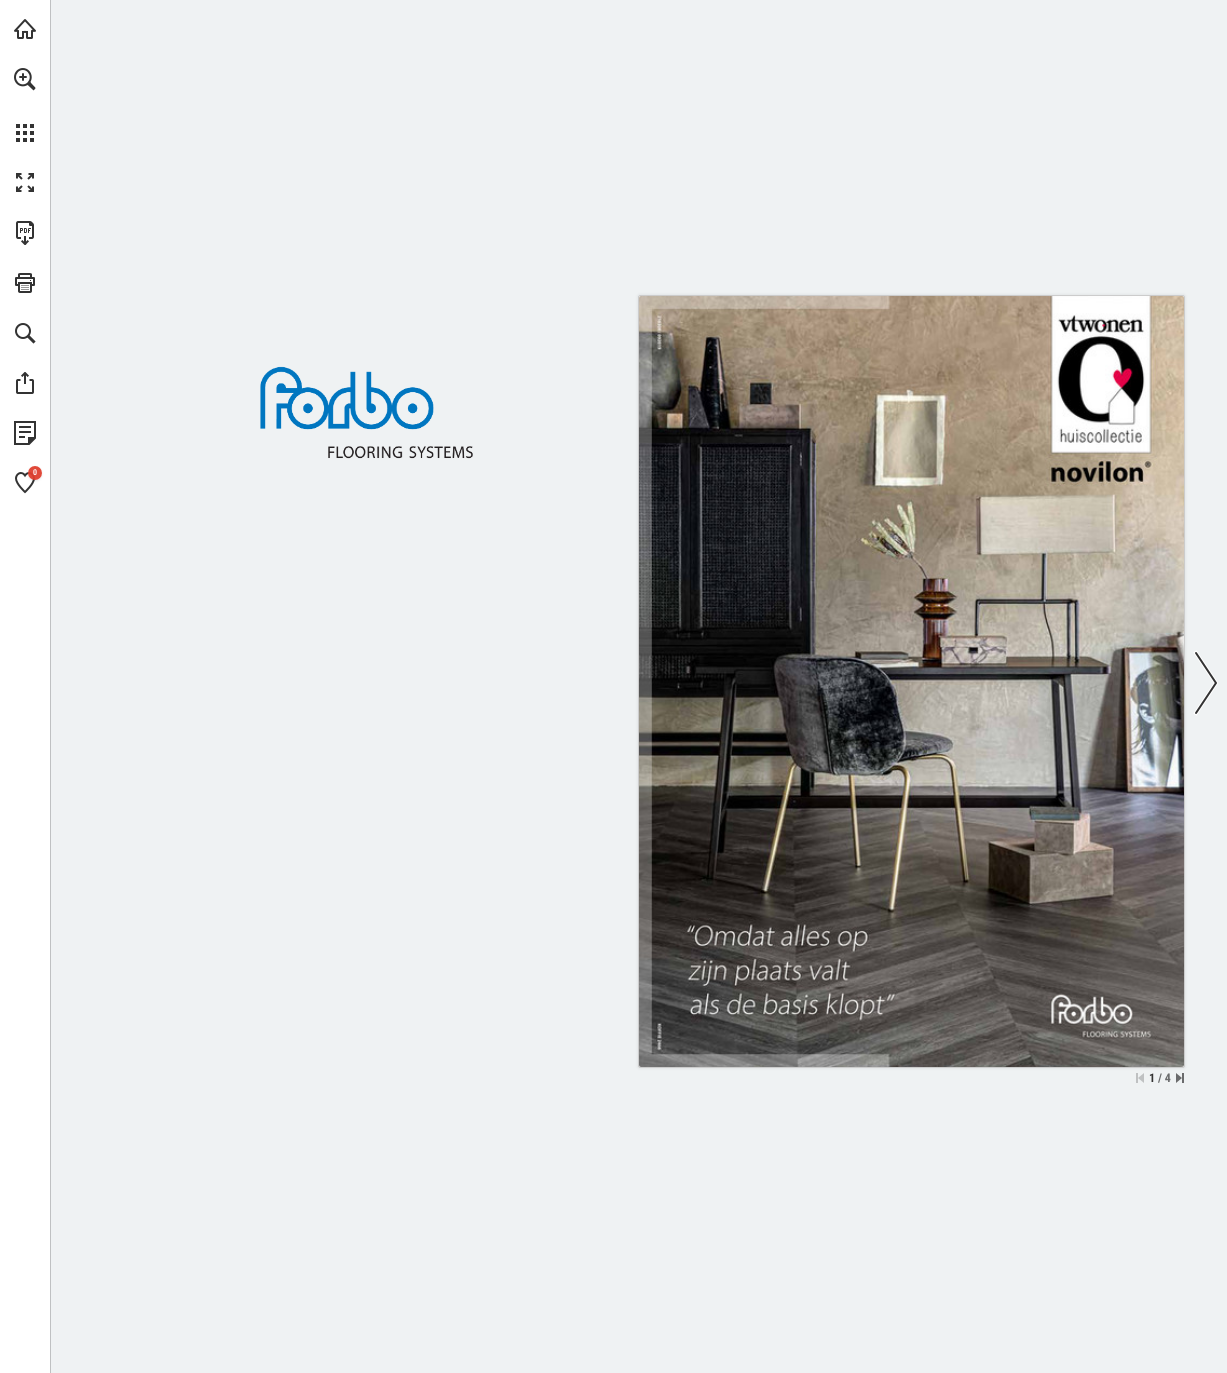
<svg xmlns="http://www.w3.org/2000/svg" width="1227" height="1373">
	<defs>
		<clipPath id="clip1"><path d="M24 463H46V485H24ZM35 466C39 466 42 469 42 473C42 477 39 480 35 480C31 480 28 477 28 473C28 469 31 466 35 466Z" clip-rule="evenodd" /></clipPath>
	</defs>
	<rect width="100%" height="100%" fill="#EFF2F3" />
	<rect x="1" y="0" width="50" height="1373" fill="#000000" fill-opacity="0.2" filter="blur(0.5px)" />
	<rect x="0" y="0" width="50" height="1373" fill="#FFFFFF" />
	<image x="14" y="19" width="22" height="20" href="assets/img1.png" />
	<image x="14" y="68" width="22" height="23" href="assets/img2.png" />
	<image x="16" y="124" width="18" height="18" href="assets/img3.png" />
	<image x="16" y="173" width="18" height="19" href="assets/img4.png" />
	<image x="16" y="221" width="18" height="24" href="assets/img5.png" />
	<image x="15" y="273" width="20" height="20" href="assets/img6.png" />
	<image x="15" y="323" width="21" height="21" href="assets/img7.png" />
	<image x="16" y="372" width="18" height="22" href="assets/img8.png" />
	<image x="14" y="421" width="22" height="24" href="assets/img9.png" />
	<image x="15" y="472" width="20" height="22" href="assets/img10.png" />
	<g clip-path="url(#clip1)">
		<rect x="28" y="467" width="14" height="14" rx="7" fill="#000000" fill-opacity="0.1" filter="blur(1px)" />
	</g>
	<circle cx="35" cy="473" r="7" fill="#DE3F2E" fill-opacity="0.95" />
	<text x="33" y="475" font-family="Roboto Condensed" font-size="8" font-weight="500" fill="#FFFFFF">0</text>
	<rect x="637" y="294" width="549" height="775" rx="3" fill="#121212" fill-opacity="0.05" filter="blur(1px)" />
	<rect x="638.5" y="295.5" width="546" height="772" rx="1.5" fill="#FFFFFF" stroke="#CCCCCC" />
	<image x="260" y="366" width="213" height="93" href="assets/img11.png" />
	<image x="639" y="296" width="545" height="771" href="assets/img12.png" />
	<image x="1193" y="650" width="25" height="66" href="assets/img13.png" />
	<image x="1136" y="1073" width="8" height="10" href="assets/img14.png" />
	<text x="1149" y="1082" font-family="Roboto Condensed" font-size="12" font-weight="700" fill="#333333">1</text>
	<text x="1158" y="1082" font-family="Roboto Condensed" font-size="12" font-weight="700" fill="#6B6C6D">/ 4</text>
	<image x="1176" y="1073" width="8" height="10" href="assets/img15.png" />
</svg>
